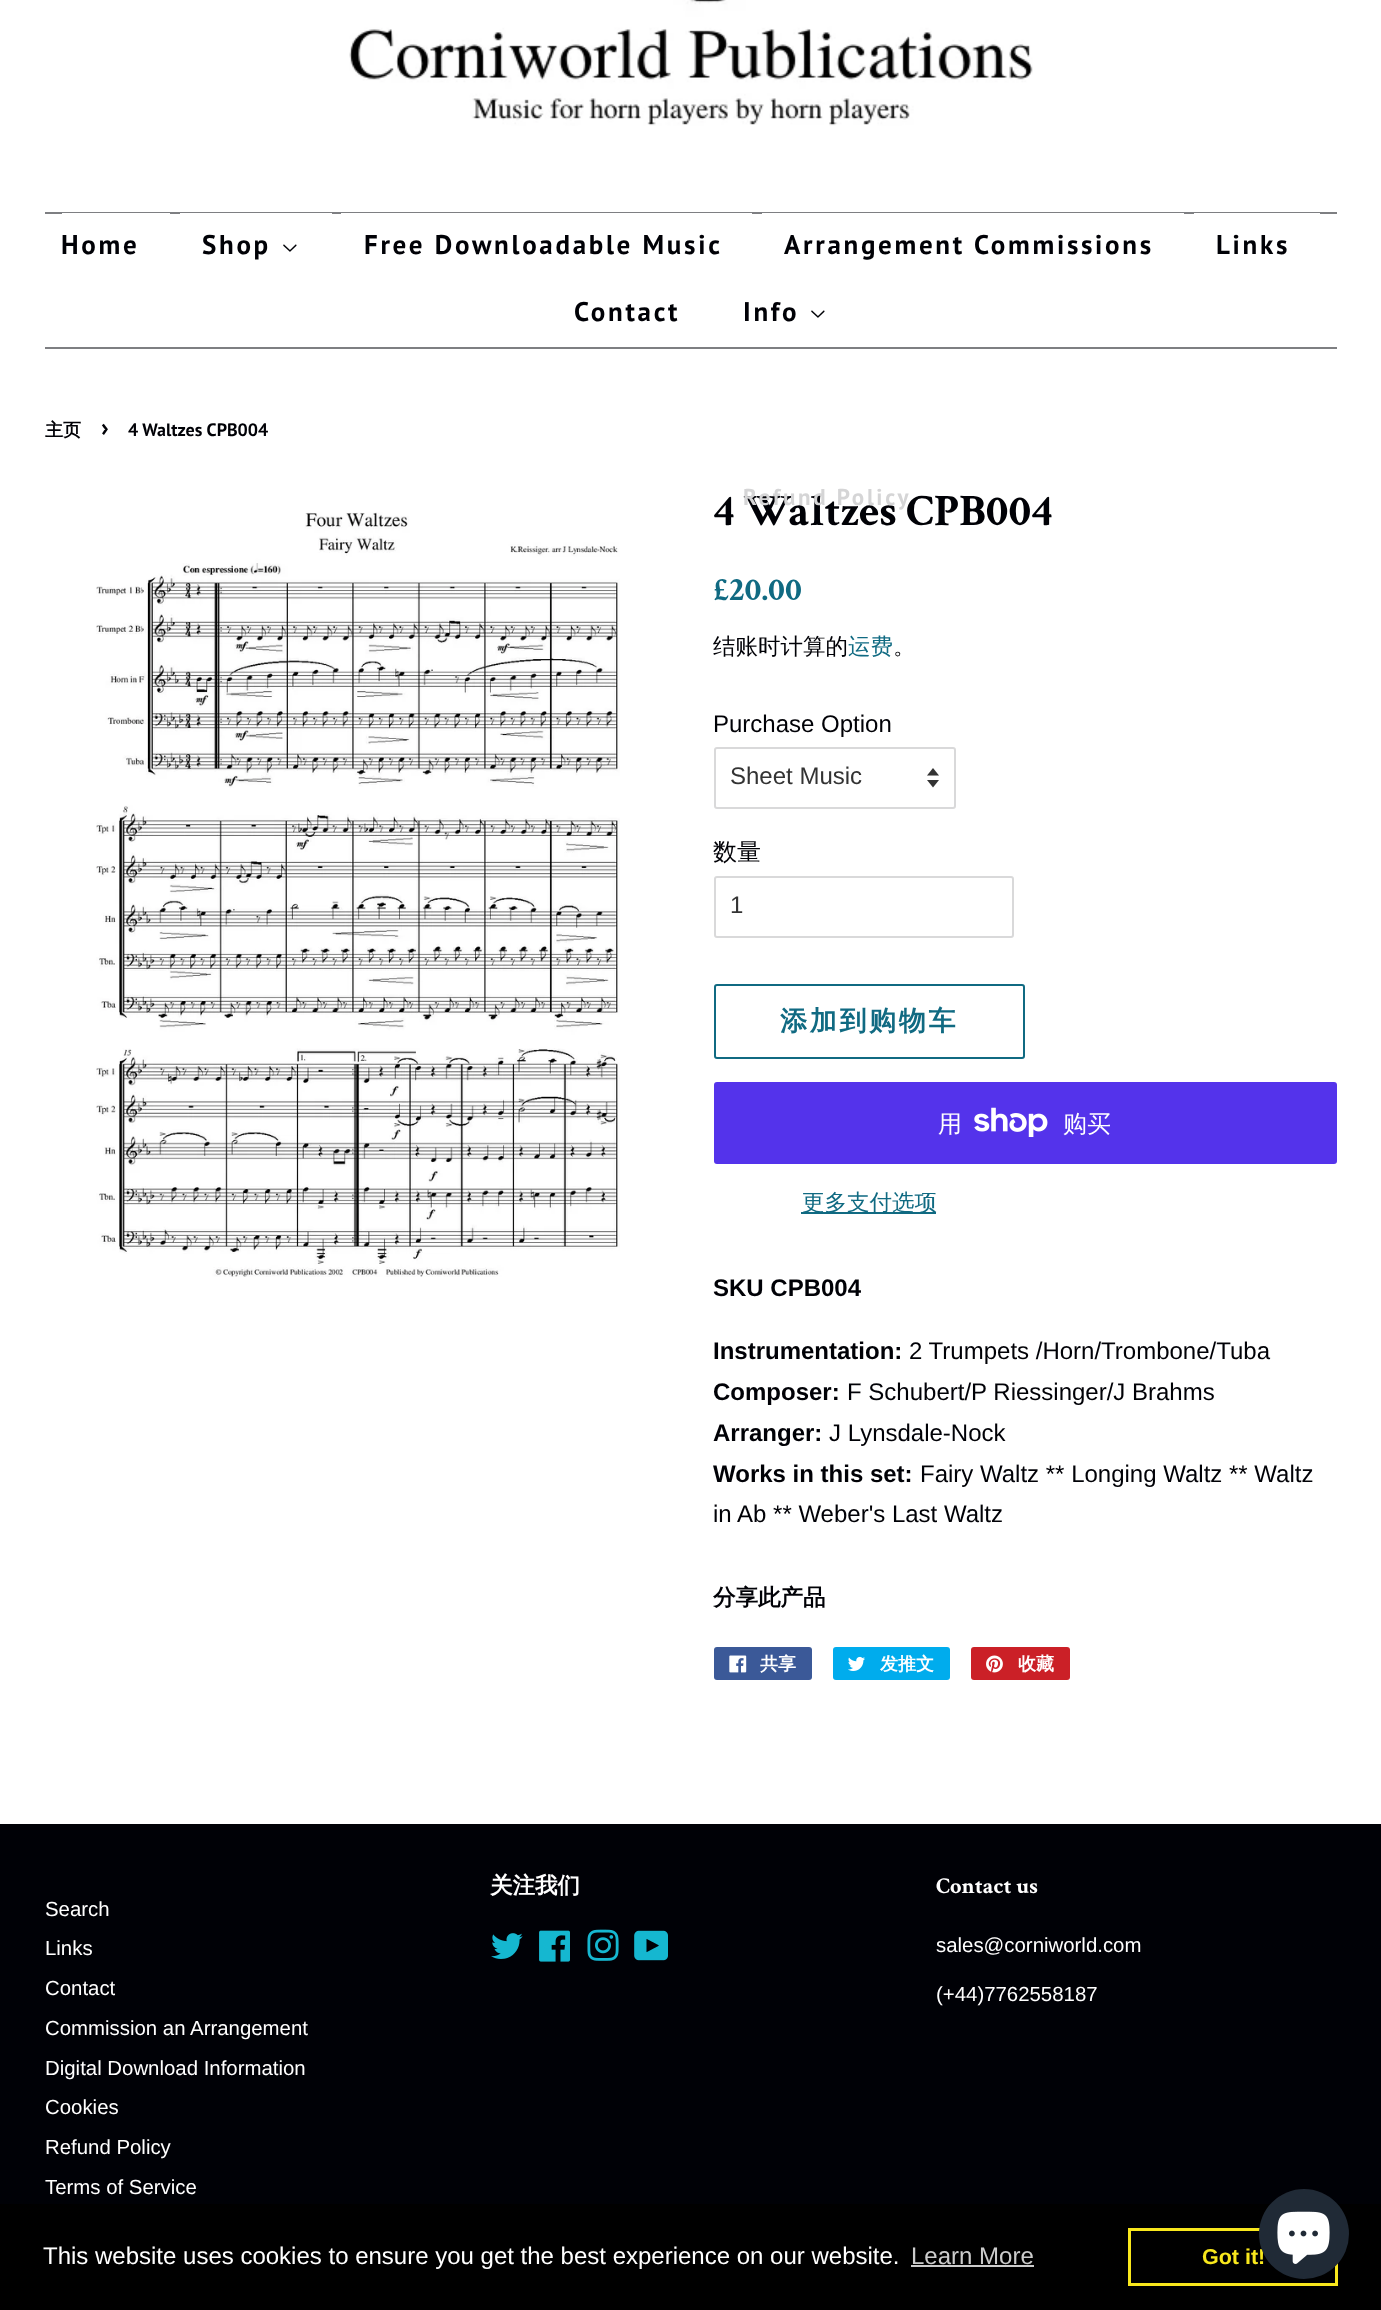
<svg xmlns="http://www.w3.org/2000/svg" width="1381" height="2310">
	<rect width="100%" height="100%" fill="#FFFFFF" />
	<image x="349" y="0" width="684" height="126" href="assets/img1.png" />
	<rect x="45" y="212" width="1292" height="2" fill="#7E7F82" />
	<rect x="45" y="347" width="1292" height="2" fill="#7E7F82" />
	<rect x="62" y="213" width="108" height="1" fill="#FFFFFF" />
	<text x="61" y="254" font-family="PT Sans" font-size="27" font-weight="700" letter-spacing="2.7" fill="#000106">Home</text>
	<rect x="180" y="213" width="152" height="1" fill="#FFFFFF" />
	<text x="202" y="254" font-family="PT Sans" font-size="27" font-weight="700" letter-spacing="2.7" fill="#000106">Shop</text>
	<image x="283" y="244" width="14" height="8" href="assets/img2.png" />
	<rect x="341" y="213" width="411" height="1" fill="#FFFFFF" />
	<text x="364" y="254" font-family="PT Sans" font-size="27" font-weight="700" letter-spacing="2.7" fill="#000106">Free Downloadable Music</text>
	<rect x="762" y="213" width="422" height="1" fill="#FFFFFF" />
	<text x="784" y="254" font-family="PT Sans" font-size="27" font-weight="700" letter-spacing="2.7" fill="#000106">Arrangement Commissions</text>
	<rect x="1194" y="213" width="126" height="1" fill="#FFFFFF" />
	<g font-family="PT Sans" font-size="27" font-weight="700" letter-spacing="2.7" fill="#000106">
		<text x="1216" y="254">Links</text>
		<text x="574" y="321">Contact</text>
		<text x="743" y="321">Info</text>
	</g>
	<image x="811" y="310" width="14" height="8" href="assets/img2.png" />
	<text x="713" y="525" font-family="Crimson Text" font-size="45" font-weight="700" fill="#000106">4 Waltzes CPB004</text>
	<text x="743" y="505" font-family="PT Sans" font-size="23" font-weight="700" letter-spacing="2.7" fill="#D5D5D6">Refund Policy</text>
	<text x="45" y="436" font-family="WenQuanYi Zen Hei" font-size="18" font-weight="700" fill="#000106">主页</text>
	<text x="101" y="436" font-family="PT Sans" font-size="25" font-weight="700" fill="#000106">›</text>
	<text x="128" y="436" font-family="PT Sans" font-size="18" font-weight="700" fill="#000106">4 Waltzes CPB004</text>
	<image x="96" y="512" width="524" height="765" href="assets/img3.png" />
	<text x="713" y="600" font-family="Crimson Text" font-size="33.5" font-weight="700" fill="#106A82">£20.00</text>
	<text x="713" y="654" font-family="WenQuanYi Zen Hei" font-size="22.5" font-weight="500" fill="#000106">结账时计算的</text>
	<text x="848" y="654" font-family="WenQuanYi Zen Hei" font-size="22.5" font-weight="500" fill="#106A82">运费</text>
	<text x="893" y="654" font-family="WenQuanYi Zen Hei" font-size="22.5" font-weight="500" fill="#000106">。</text>
	<text x="713" y="732" font-family="Liberation Sans" font-size="24" fill="#000106">Purchase Option</text>
	<image x="927" y="768" width="12" height="20" href="assets/img4.png" />
	<rect x="715" y="748" width="240" height="60" rx="2" fill="none" stroke="#D9D9DA" stroke-width="2" />
	<text x="730" y="784" font-family="Liberation Sans" font-size="24" fill="#333333">Sheet Music</text>
	<text x="713" y="860" font-family="WenQuanYi Zen Hei" font-size="24" font-weight="500" fill="#000106">数量</text>
	<rect x="715" y="877" width="298" height="60" rx="2" fill="none" stroke="#D9D9DA" stroke-width="2" />
	<text x="730" y="913" font-family="Liberation Sans" font-size="24" fill="#333333">1</text>
	<rect x="715" y="985" width="309" height="73" rx="2" fill="none" stroke="#106A82" stroke-width="2" />
	<text x="780" y="1030" font-family="WenQuanYi Zen Hei" font-size="27" font-weight="700" letter-spacing="2.7" fill="#106A82">添加到购物车</text>
	<rect x="714" y="1082" width="623" height="82" rx="3" fill="#5433EB" />
	<text x="938" y="1132" font-family="WenQuanYi Zen Hei" font-size="24" font-weight="500" fill="#FFFFFF">用</text>
	<image x="974" y="1107" width="74" height="30" href="assets/img5.png" />
	<text x="1063" y="1132" font-family="WenQuanYi Zen Hei" font-size="24" font-weight="500" fill="#FFFFFF">购买</text>
	<rect x="801" y="1212" width="135" height="2" fill="#106A82" />
	<text x="802" y="1210" font-family="WenQuanYi Zen Hei" font-size="22.5" font-weight="500" fill="#106A82">更多支付选项</text>
	<g font-family="Liberation Sans" font-size="24" font-weight="700" fill="#000106">
		<text x="713" y="1296">SKU CPB004</text>
		<text x="713" y="1359">Instrumentation:</text>
	</g>
	<text x="909" y="1359" font-family="Liberation Sans" font-size="24" fill="#000106">2 Trumpets /Horn/Trombone/Tuba</text>
	<text x="713" y="1400" font-family="Liberation Sans" font-size="24" font-weight="700" fill="#000106">Composer:</text>
	<text x="847" y="1400" font-family="Liberation Sans" font-size="24" fill="#000106">F Schubert/P Riessinger/J Brahms</text>
	<text x="713" y="1441" font-family="Liberation Sans" font-size="24" font-weight="700" fill="#000106">Arranger:</text>
	<text x="829" y="1441" font-family="Liberation Sans" font-size="24" fill="#000106">J Lynsdale-Nock</text>
	<text x="713" y="1482" font-family="Liberation Sans" font-size="24" font-weight="700" fill="#000106">Works in this set:</text>
	<g font-family="Liberation Sans" font-size="24" fill="#000106">
		<text x="920" y="1482">Fairy Waltz ** Longing Waltz ** Waltz</text>
		<text x="713" y="1522">in Ab ** Weber's Last Waltz</text>
	</g>
	<text x="713" y="1605" font-family="WenQuanYi Zen Hei" font-size="22.5" font-weight="700" fill="#000106">分享此产品</text>
	<rect x="714" y="1647" width="98" height="33" rx="3" fill="#3B5998" />
	<image x="729" y="1655" width="18" height="18" href="assets/img6.png" />
	<text x="760" y="1670" font-family="WenQuanYi Zen Hei" font-size="18" font-weight="700" fill="#FFFFFF">共享</text>
	<rect x="833" y="1647" width="117" height="33" rx="3" fill="#00ACED" />
	<image x="848" y="1656" width="17" height="15" href="assets/img7.png" />
	<text x="880" y="1670" font-family="WenQuanYi Zen Hei" font-size="18" font-weight="700" fill="#FFFFFF">发推文</text>
	<rect x="971" y="1647" width="99" height="33" rx="3" fill="#CB2027" />
	<image x="986" y="1655" width="17" height="18" href="assets/img8.png" />
	<text x="1018" y="1670" font-family="WenQuanYi Zen Hei" font-size="18" font-weight="700" fill="#FFFFFF">收藏</text>
	<rect x="0" y="1824" width="1381" height="380" fill="#000106" />
	<g font-family="Liberation Sans" font-size="20.4" fill="#FFFFFF">
		<text x="45" y="1916">Search</text>
		<text x="45" y="1955">Links</text>
		<text x="45" y="1995">Contact</text>
		<text x="45" y="2035">Commission an Arrangement</text>
		<text x="45" y="2075">Digital Download Information</text>
		<text x="45" y="2114">Cookies</text>
		<text x="45" y="2154">Refund Policy</text>
		<text x="45" y="2194">Terms of Service</text>
	</g>
	<text x="490" y="1893" font-family="WenQuanYi Zen Hei" font-size="22.5" font-weight="700" fill="#FFFFFF">关注我们</text>
	<image x="491" y="1933" width="32" height="26" href="assets/img9.png" />
	<image x="539" y="1930" width="31" height="32" href="assets/img10.png" />
	<image x="587" y="1929" width="32" height="32" href="assets/img11.png" />
	<image x="634" y="1930" width="34" height="31" href="assets/img12.png" />
	<text x="936" y="1893" font-family="Crimson Text" font-size="22.5" font-weight="700" fill="#FFFFFF">Contact us</text>
	<g font-family="Liberation Sans" font-size="20.4" fill="#FFFFFF">
		<text x="936" y="1952">sales@corniworld.com</text>
		<text x="936" y="2001">(+44)7762558187</text>
	</g>
	<rect x="0" y="2204" width="1381" height="106" fill="#000000" />
	<text x="43" y="2264" font-family="Liberation Sans" font-size="24" fill="#FFFFFF">This website uses cookies to ensure you get the best experience on our website.</text>
	<text x="911" y="2264" font-family="Liberation Sans" font-size="24" fill="#CCCCCC">Learn More</text>
	<rect x="911" y="2265" width="123" height="2" fill="#CCCCCC" />
	<rect x="1129.5" y="2229.5" width="207" height="55" fill="none" stroke="#F8E71C" stroke-width="3" />
	<text x="1202" y="2264" font-family="Liberation Sans" font-size="21.5" font-weight="700" fill="#F8E71C">Got it!</text>
	<circle cx="1304" cy="2234" r="45" fill="#202A36" />
	<image x="1277" y="2211" width="53" height="53" href="assets/img13.png" />
</svg>
